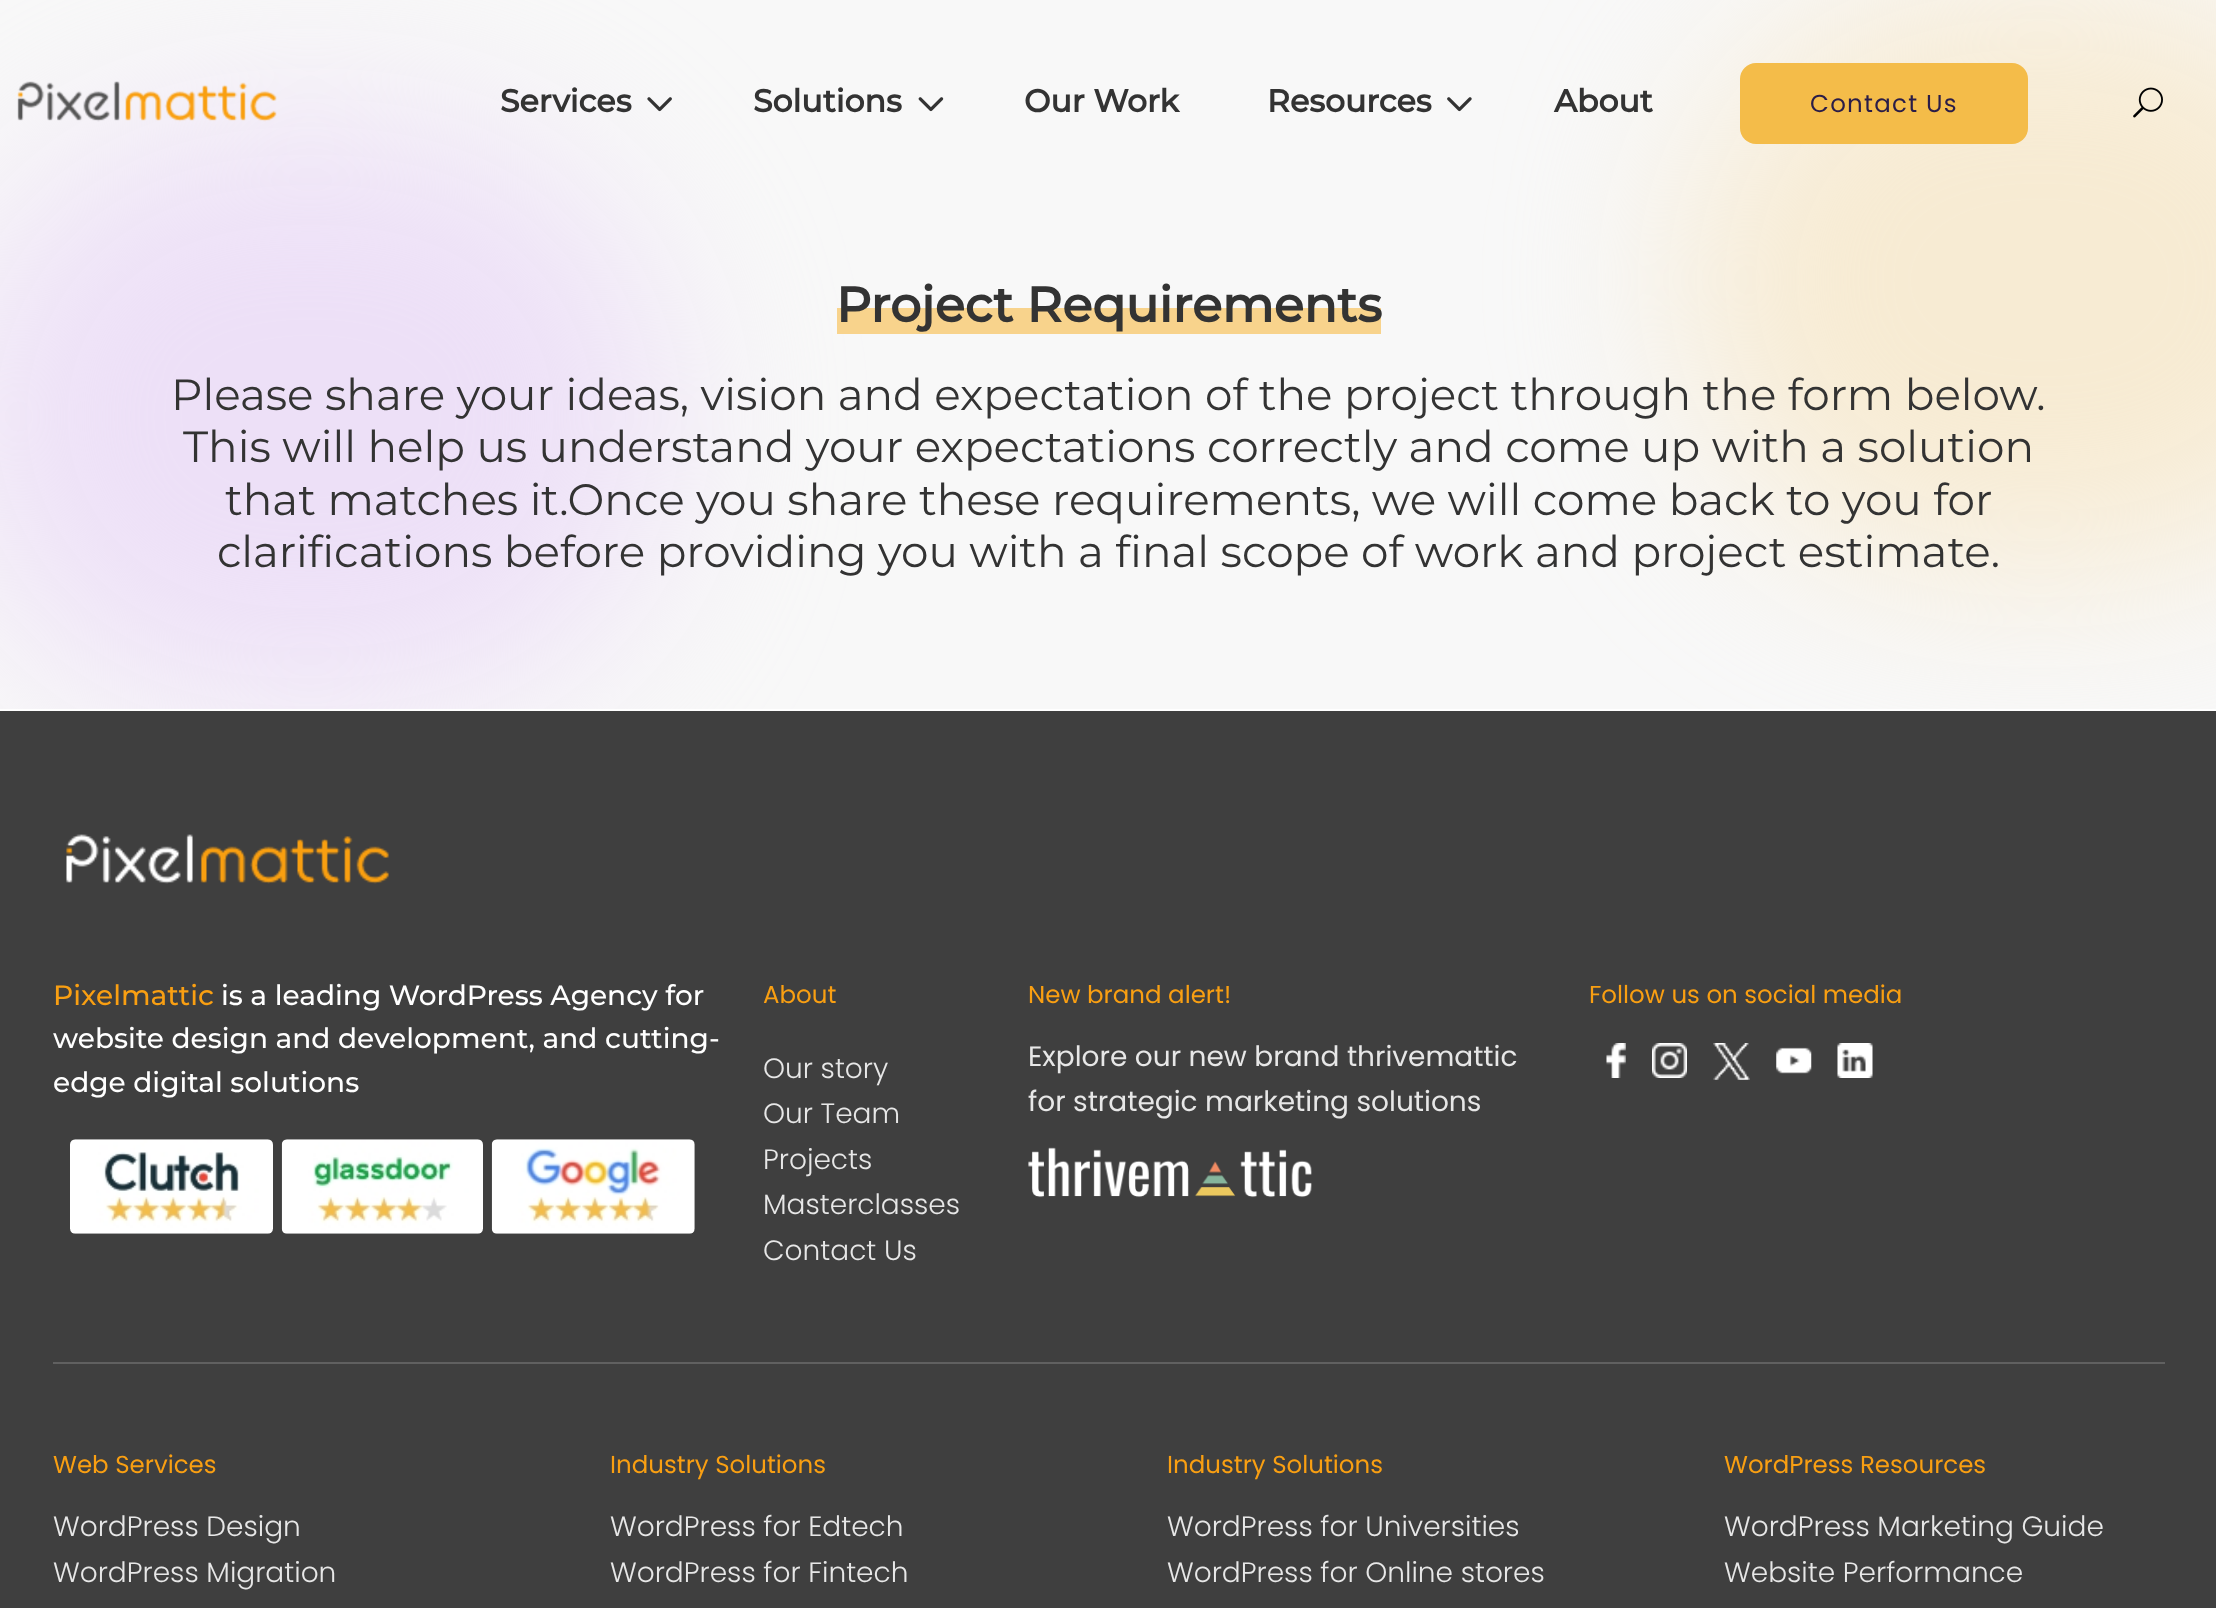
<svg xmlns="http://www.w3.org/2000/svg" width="2216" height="1608">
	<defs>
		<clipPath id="clip1"><rect x="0" y="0" width="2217" height="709" /></clipPath>
	</defs>
	<rect width="100%" height="100%" fill="#FFFFFF" />
	<rect x="0" y="0" width="2216" height="709" fill="#F8F8F8" />
	<rect x="0" y="711" width="2216" height="897" fill="#3F3F3F" />
	<image x="66" y="834" width="323" height="50" href="assets/img6.png" />
	<g clip-path="url(#clip1)">
		<rect x="-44" y="124" width="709" height="585" rx="292.5" fill="#EDE0F7" filter="blur(87.5px)" />
	</g>
	<image x="17" y="81" width="260" height="41" href="assets/img1.png" />
	<text x="500" y="112" font-family="Montserrat" font-size="31.5" font-weight="700" fill="#333333">Services</text>
	<image x="647" y="97" width="25" height="15" href="assets/img2.png" />
	<text x="753" y="112" font-family="Montserrat" font-size="31.5" font-weight="700" fill="#333333">Solutions</text>
	<image x="918" y="97" width="26" height="15" href="assets/img3.png" />
	<text x="1024" y="112" font-family="Montserrat" font-size="31.5" font-weight="700" fill="#333333">Our Work</text>
	<g clip-path="url(#clip1)">
		<rect x="1685" y="-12" width="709" height="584" rx="292" fill="#F7EBD3" filter="blur(87.5px)" />
	</g>
	<text x="1267" y="112" font-family="Montserrat" font-size="31.5" font-weight="700" fill="#333333">Resources</text>
	<image x="1447" y="97" width="25" height="15" href="assets/img4.png" />
	<text x="1554" y="112" font-family="Montserrat" font-size="31.5" font-weight="700" fill="#333333">About</text>
	<rect x="1740" y="63" width="288" height="81" rx="16" fill="#F4BC49" />
	<text x="1810" y="112" font-family="Poppins" font-size="24.5" letter-spacing="1.25" fill="#2A1D48">Contact Us</text>
	<image x="2133" y="87" width="30" height="31" href="assets/img5.png" />
	<rect x="837" y="308" width="544" height="26" fill="#F8D38C" />
	<text x="836" y="322" font-family="Montserrat" font-size="49" font-weight="700" fill="#333333">Project Requirements</text>
	<g font-family="Montserrat" font-size="43.75" fill="#333333">
		<text x="171" y="410">Please share your ideas, vision and expectation of the project through the form below.</text>
		<text x="183" y="462">This will help us understand your expectations correctly and come up with a solution</text>
		<text x="225" y="515">that matches it.Once you share these requirements, we will come back to you for</text>
		<text x="217" y="567">clarifications before providing you with a final scope of work and project estimate.</text>
	</g>
	<text x="53" y="1005" font-family="Montserrat" font-size="28" font-weight="500" fill="#F99F12">Pixelmattic</text>
	<g font-family="Montserrat" font-size="28" font-weight="500" fill="#FFFFFF">
		<text x="221" y="1005">is a leading WordPress Agency for</text>
		<text x="53" y="1048">website design and development, and cutting-</text>
		<text x="53" y="1092">edge digital solutions</text>
	</g>
	<image x="70" y="1139" width="203" height="95" href="assets/img7.png" />
	<image x="281" y="1139" width="202" height="95" href="assets/img8.png" />
	<image x="491" y="1139" width="204" height="95" href="assets/img9.png" />
	<text x="763" y="1003" font-family="Poppins" font-size="24.5" fill="#F99F12">About</text>
	<g font-family="Poppins" font-size="28" font-weight="300" fill="#E7E7E7">
		<text x="763" y="1078">Our story</text>
		<text x="763" y="1123">Our Team</text>
		<text x="763" y="1169">Projects</text>
		<text x="763" y="1214">Masterclasses</text>
		<text x="763" y="1260">Contact Us</text>
	</g>
	<text x="1028" y="1003" font-family="Poppins" font-size="24.5" fill="#F99F12">New brand alert!</text>
	<g font-family="Poppins" font-size="28" fill="#E7E7E7">
		<text x="1028" y="1066">Explore our new brand thrivemattic</text>
		<text x="1028" y="1111">for strategic marketing solutions</text>
	</g>
	<image x="1028" y="1147" width="284" height="51" href="assets/img10.png" />
	<text x="1589" y="1003" font-family="Poppins" font-size="24.5" fill="#F99F12">Follow us on social media</text>
	<image x="1606" y="1043" width="20" height="35" href="assets/img11.png" />
	<image x="1652" y="1043" width="35" height="35" href="assets/img12.png" />
	<image x="1713" y="1043" width="37" height="37" href="assets/img13.png" />
	<image x="1776" y="1047" width="36" height="27" href="assets/img14.png" />
	<image x="1837" y="1043" width="36" height="35" href="assets/img15.png" />
	<rect x="53" y="1362" width="2112" height="2" fill="#606060" />
	<text x="53" y="1473" font-family="Poppins" font-size="24.5" fill="#F99F12">Web Services</text>
	<g font-family="Poppins" font-size="28" font-weight="300" fill="#E7E7E7">
		<text x="53" y="1536">WordPress Design</text>
		<text x="53" y="1582">WordPress Migration</text>
	</g>
	<text x="610" y="1473" font-family="Poppins" font-size="24.5" fill="#F99F12">Industry Solutions</text>
	<g font-family="Poppins" font-size="28" font-weight="300" fill="#E7E7E7">
		<text x="610" y="1536">WordPress for Edtech</text>
		<text x="610" y="1582">WordPress for Fintech</text>
	</g>
	<text x="1167" y="1473" font-family="Poppins" font-size="24.5" fill="#F99F12">Industry Solutions</text>
	<g font-family="Poppins" font-size="28" font-weight="300" fill="#E7E7E7">
		<text x="1167" y="1536">WordPress for Universities</text>
		<text x="1167" y="1582">WordPress for Online stores</text>
	</g>
	<text x="1724" y="1473" font-family="Poppins" font-size="24.5" fill="#F99F12">WordPress Resources</text>
	<g font-family="Poppins" font-size="28" font-weight="300" fill="#E7E7E7">
		<text x="1724" y="1536">WordPress Marketing Guide</text>
		<text x="1724" y="1582">Website Performance</text>
	</g>
</svg>
